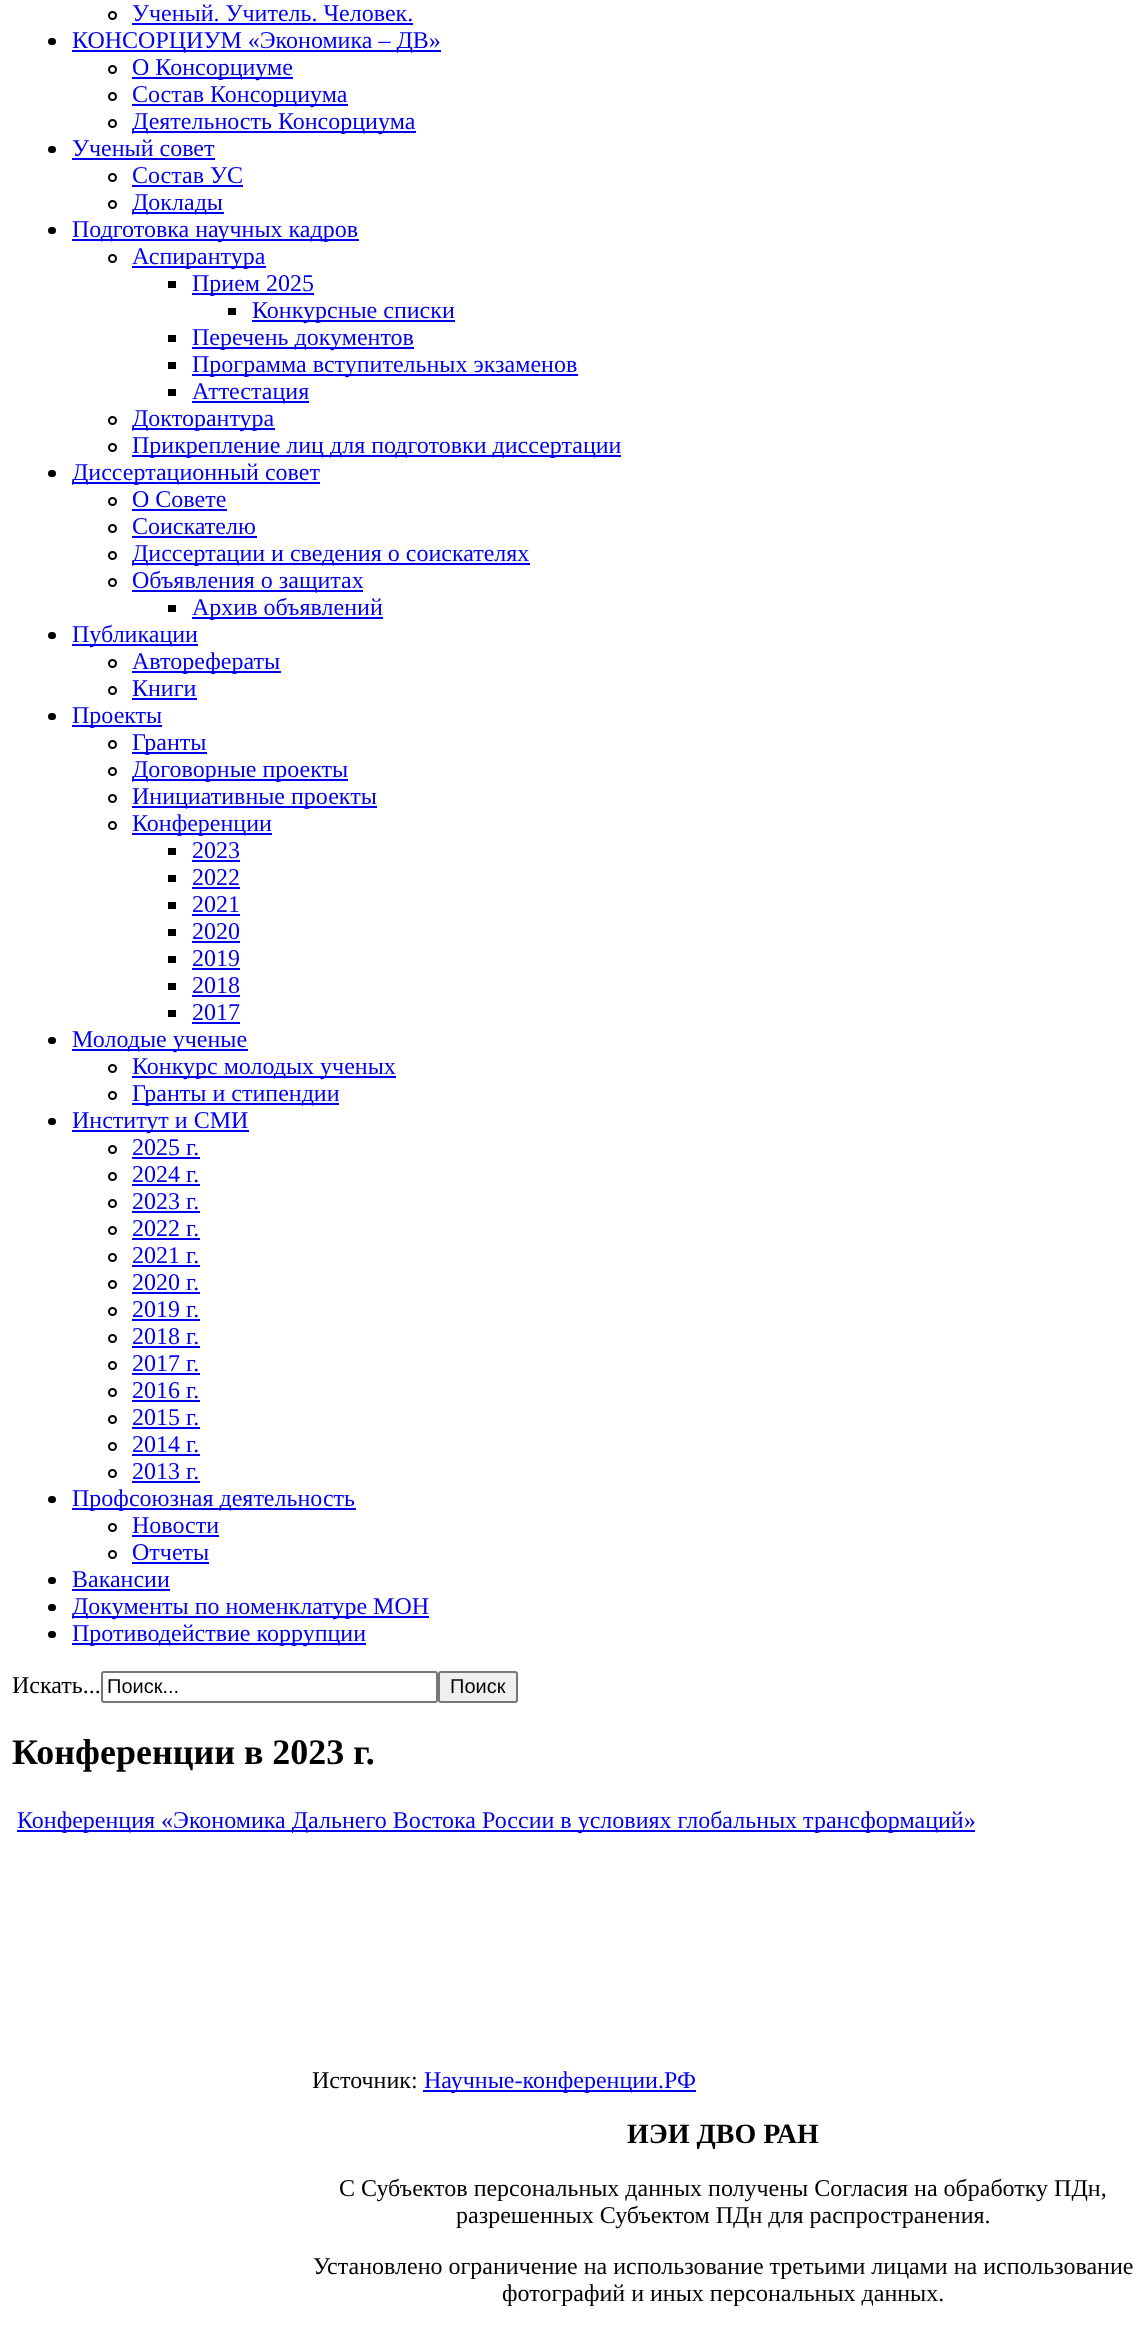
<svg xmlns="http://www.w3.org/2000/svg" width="1146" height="2344">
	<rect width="100%" height="100%" fill="#FFFFFF" />
	<circle cx="112.5" cy="15.5" r="3.5" fill="none" stroke="#000000" stroke-width="2" />
	<text x="132" y="21" font-family="Liberation Serif" font-size="24" fill="#0000EE">Ученый. Учитель. Человек.</text>
	<rect x="132" y="23" width="281" height="2" fill="#0000EE" />
	<rect x="48" y="38" width="8" height="7" rx="3.5" fill="#000000" />
	<rect x="72" y="50" width="369" height="2" fill="#0000EE" />
	<text x="72" y="48" font-family="Liberation Serif" font-size="24" fill="#0000EE">КОНСОРЦИУМ «Экономика – ДВ»</text>
	<circle cx="112.5" cy="69.5" r="3.5" fill="none" stroke="#000000" stroke-width="2" />
	<rect x="132" y="77" width="161" height="2" fill="#0000EE" />
	<text x="132" y="75" font-family="Liberation Serif" font-size="24" fill="#0000EE">О Консорциуме</text>
	<circle cx="112.5" cy="96.5" r="3.5" fill="none" stroke="#000000" stroke-width="2" />
	<rect x="132" y="104" width="216" height="2" fill="#0000EE" />
	<text x="132" y="102" font-family="Liberation Serif" font-size="24" fill="#0000EE">Состав Консорциума</text>
	<circle cx="112.5" cy="123.5" r="3.5" fill="none" stroke="#000000" stroke-width="2" />
	<rect x="132" y="131" width="284" height="2" fill="#0000EE" />
	<text x="132" y="129" font-family="Liberation Serif" font-size="24" fill="#0000EE">Деятельность Консорциума</text>
	<rect x="48" y="146" width="8" height="7" rx="3.5" fill="#000000" />
	<text x="72" y="156" font-family="Liberation Serif" font-size="24" fill="#0000EE">Ученый совет</text>
	<rect x="72" y="158" width="143" height="2" fill="#0000EE" />
	<circle cx="112.5" cy="177.5" r="3.5" fill="none" stroke="#000000" stroke-width="2" />
	<text x="132" y="183" font-family="Liberation Serif" font-size="24" fill="#0000EE">Состав УС</text>
	<rect x="132" y="185" width="111" height="2" fill="#0000EE" />
	<circle cx="112.5" cy="204.5" r="3.5" fill="none" stroke="#000000" stroke-width="2" />
	<rect x="132" y="212" width="92" height="2" fill="#0000EE" />
	<text x="132" y="210" font-family="Liberation Serif" font-size="24" fill="#0000EE">Доклады</text>
	<rect x="48" y="227" width="8" height="7" rx="3.5" fill="#000000" />
	<rect x="72" y="239" width="287" height="2" fill="#0000EE" />
	<text x="72" y="237" font-family="Liberation Serif" font-size="24" fill="#0000EE">Подготовка научных кадров</text>
	<circle cx="112.5" cy="258.5" r="3.5" fill="none" stroke="#000000" stroke-width="2" />
	<rect x="132" y="266" width="134" height="2" fill="#0000EE" />
	<text x="132" y="264" font-family="Liberation Serif" font-size="24" fill="#0000EE">Аспирантура</text>
	<rect x="168" y="281" width="8" height="7" fill="#000000" />
	<rect x="192" y="293" width="122" height="2" fill="#0000EE" />
	<text x="192" y="291" font-family="Liberation Serif" font-size="24" fill="#0000EE">Прием 2025</text>
	<rect x="228" y="308" width="8" height="7" fill="#000000" />
	<rect x="252" y="320" width="203" height="2" fill="#0000EE" />
	<text x="252" y="318" font-family="Liberation Serif" font-size="24" fill="#0000EE">Конкурсные списки</text>
	<rect x="168" y="335" width="8" height="7" fill="#000000" />
	<rect x="192" y="347" width="222" height="2" fill="#0000EE" />
	<text x="192" y="345" font-family="Liberation Serif" font-size="24" fill="#0000EE">Перечень документов</text>
	<rect x="168" y="362" width="8" height="7" fill="#000000" />
	<rect x="192" y="374" width="386" height="2" fill="#0000EE" />
	<text x="192" y="372" font-family="Liberation Serif" font-size="24" fill="#0000EE">Программа вступительных экзаменов</text>
	<rect x="168" y="389" width="8" height="7" fill="#000000" />
	<rect x="192" y="401" width="117" height="2" fill="#0000EE" />
	<text x="192" y="399" font-family="Liberation Serif" font-size="24" fill="#0000EE">Аттестация</text>
	<circle cx="112.5" cy="420.5" r="3.5" fill="none" stroke="#000000" stroke-width="2" />
	<rect x="132" y="428" width="143" height="2" fill="#0000EE" />
	<text x="132" y="426" font-family="Liberation Serif" font-size="24" fill="#0000EE">Докторантура</text>
	<circle cx="112.5" cy="447.5" r="3.5" fill="none" stroke="#000000" stroke-width="2" />
	<rect x="132" y="455" width="489" height="2" fill="#0000EE" />
	<text x="132" y="453" font-family="Liberation Serif" font-size="24" fill="#0000EE">Прикрепление лиц для подготовки диссертации</text>
	<rect x="48" y="470" width="8" height="7" rx="3.5" fill="#000000" />
	<rect x="72" y="482" width="248" height="2" fill="#0000EE" />
	<text x="72" y="480" font-family="Liberation Serif" font-size="24" fill="#0000EE">Диссертационный совет</text>
	<circle cx="112.5" cy="501.5" r="3.5" fill="none" stroke="#000000" stroke-width="2" />
	<text x="132" y="507" font-family="Liberation Serif" font-size="24" fill="#0000EE">О Совете</text>
	<rect x="132" y="509" width="95" height="2" fill="#0000EE" />
	<circle cx="112.5" cy="528.5" r="3.5" fill="none" stroke="#000000" stroke-width="2" />
	<text x="132" y="534" font-family="Liberation Serif" font-size="24" fill="#0000EE">Соискателю</text>
	<rect x="132" y="536" width="125" height="2" fill="#0000EE" />
	<circle cx="112.5" cy="555.5" r="3.5" fill="none" stroke="#000000" stroke-width="2" />
	<rect x="132" y="563" width="398" height="2" fill="#0000EE" />
	<text x="132" y="561" font-family="Liberation Serif" font-size="24" fill="#0000EE">Диссертации и сведения о соискателях</text>
	<circle cx="112.5" cy="582.5" r="3.5" fill="none" stroke="#000000" stroke-width="2" />
	<rect x="132" y="590" width="231" height="2" fill="#0000EE" />
	<text x="132" y="588" font-family="Liberation Serif" font-size="24" fill="#0000EE">Объявления о защитах</text>
	<rect x="168" y="605" width="8" height="7" fill="#000000" />
	<rect x="192" y="617" width="191" height="2" fill="#0000EE" />
	<text x="192" y="615" font-family="Liberation Serif" font-size="24" fill="#0000EE">Архив объявлений</text>
	<rect x="48" y="632" width="8" height="7" rx="3.5" fill="#000000" />
	<rect x="72" y="644" width="126" height="2" fill="#0000EE" />
	<text x="72" y="642" font-family="Liberation Serif" font-size="24" fill="#0000EE">Публикации</text>
	<circle cx="112.5" cy="663.5" r="3.5" fill="none" stroke="#000000" stroke-width="2" />
	<rect x="132" y="671" width="149" height="2" fill="#0000EE" />
	<text x="132" y="669" font-family="Liberation Serif" font-size="24" fill="#0000EE">Авторефераты</text>
	<circle cx="112.5" cy="690.5" r="3.5" fill="none" stroke="#000000" stroke-width="2" />
	<text x="132" y="696" font-family="Liberation Serif" font-size="24" fill="#0000EE">Книги</text>
	<rect x="132" y="698" width="65" height="2" fill="#0000EE" />
	<rect x="48" y="713" width="8" height="7" rx="3.5" fill="#000000" />
	<rect x="72" y="725" width="90" height="2" fill="#0000EE" />
	<text x="72" y="723" font-family="Liberation Serif" font-size="24" fill="#0000EE">Проекты</text>
	<circle cx="112.5" cy="744.5" r="3.5" fill="none" stroke="#000000" stroke-width="2" />
	<rect x="132" y="752" width="75" height="2" fill="#0000EE" />
	<text x="132" y="750" font-family="Liberation Serif" font-size="24" fill="#0000EE">Гранты</text>
	<circle cx="112.5" cy="771.5" r="3.5" fill="none" stroke="#000000" stroke-width="2" />
	<rect x="132" y="779" width="216" height="2" fill="#0000EE" />
	<text x="132" y="777" font-family="Liberation Serif" font-size="24" fill="#0000EE">Договорные проекты</text>
	<circle cx="112.5" cy="798.5" r="3.5" fill="none" stroke="#000000" stroke-width="2" />
	<rect x="132" y="806" width="245" height="2" fill="#0000EE" />
	<text x="132" y="804" font-family="Liberation Serif" font-size="24" fill="#0000EE">Инициативные проекты</text>
	<circle cx="112.5" cy="825.5" r="3.5" fill="none" stroke="#000000" stroke-width="2" />
	<rect x="132" y="833" width="140" height="2" fill="#0000EE" />
	<text x="132" y="831" font-family="Liberation Serif" font-size="24" fill="#0000EE">Конференции</text>
	<rect x="168" y="848" width="8" height="7" fill="#000000" />
	<text x="192" y="858" font-family="Liberation Serif" font-size="24" fill="#0000EE">2023</text>
	<rect x="192" y="860" width="48" height="2" fill="#0000EE" />
	<rect x="168" y="875" width="8" height="7" fill="#000000" />
	<text x="192" y="885" font-family="Liberation Serif" font-size="24" fill="#0000EE">2022</text>
	<rect x="192" y="887" width="48" height="2" fill="#0000EE" />
	<rect x="168" y="902" width="8" height="7" fill="#000000" />
	<text x="192" y="912" font-family="Liberation Serif" font-size="24" fill="#0000EE">2021</text>
	<rect x="192" y="914" width="48" height="2" fill="#0000EE" />
	<rect x="168" y="929" width="8" height="7" fill="#000000" />
	<text x="192" y="939" font-family="Liberation Serif" font-size="24" fill="#0000EE">2020</text>
	<rect x="192" y="941" width="48" height="2" fill="#0000EE" />
	<rect x="168" y="956" width="8" height="7" fill="#000000" />
	<text x="192" y="966" font-family="Liberation Serif" font-size="24" fill="#0000EE">2019</text>
	<rect x="192" y="968" width="48" height="2" fill="#0000EE" />
	<rect x="168" y="983" width="8" height="7" fill="#000000" />
	<text x="192" y="993" font-family="Liberation Serif" font-size="24" fill="#0000EE">2018</text>
	<rect x="192" y="995" width="48" height="2" fill="#0000EE" />
	<rect x="168" y="1010" width="8" height="7" fill="#000000" />
	<text x="192" y="1020" font-family="Liberation Serif" font-size="24" fill="#0000EE">2017</text>
	<rect x="192" y="1022" width="48" height="2" fill="#0000EE" />
	<rect x="48" y="1037" width="8" height="7" rx="3.5" fill="#000000" />
	<rect x="72" y="1049" width="176" height="2" fill="#0000EE" />
	<text x="72" y="1047" font-family="Liberation Serif" font-size="24" fill="#0000EE">Молодые ученые</text>
	<circle cx="112.5" cy="1068.5" r="3.5" fill="none" stroke="#000000" stroke-width="2" />
	<rect x="132" y="1076" width="264" height="2" fill="#0000EE" />
	<text x="132" y="1074" font-family="Liberation Serif" font-size="24" fill="#0000EE">Конкурс молодых ученых</text>
	<circle cx="112.5" cy="1095.5" r="3.5" fill="none" stroke="#000000" stroke-width="2" />
	<rect x="132" y="1103" width="207" height="2" fill="#0000EE" />
	<text x="132" y="1101" font-family="Liberation Serif" font-size="24" fill="#0000EE">Гранты и стипендии</text>
	<rect x="48" y="1118" width="8" height="7" rx="3.5" fill="#000000" />
	<rect x="72" y="1130" width="177" height="2" fill="#0000EE" />
	<text x="72" y="1128" font-family="Liberation Serif" font-size="24" fill="#0000EE">Институт и СМИ</text>
	<circle cx="112.5" cy="1149.5" r="3.5" fill="none" stroke="#000000" stroke-width="2" />
	<text x="132" y="1155" font-family="Liberation Serif" font-size="24" fill="#0000EE">2025 г.</text>
	<rect x="132" y="1157" width="68" height="2" fill="#0000EE" />
	<circle cx="112.5" cy="1176.5" r="3.5" fill="none" stroke="#000000" stroke-width="2" />
	<text x="132" y="1182" font-family="Liberation Serif" font-size="24" fill="#0000EE">2024 г.</text>
	<rect x="132" y="1184" width="68" height="2" fill="#0000EE" />
	<circle cx="112.5" cy="1203.5" r="3.5" fill="none" stroke="#000000" stroke-width="2" />
	<text x="132" y="1209" font-family="Liberation Serif" font-size="24" fill="#0000EE">2023 г.</text>
	<rect x="132" y="1211" width="68" height="2" fill="#0000EE" />
	<circle cx="112.5" cy="1230.5" r="3.5" fill="none" stroke="#000000" stroke-width="2" />
	<text x="132" y="1236" font-family="Liberation Serif" font-size="24" fill="#0000EE">2022 г.</text>
	<rect x="132" y="1238" width="68" height="2" fill="#0000EE" />
	<circle cx="112.5" cy="1257.5" r="3.5" fill="none" stroke="#000000" stroke-width="2" />
	<text x="132" y="1263" font-family="Liberation Serif" font-size="24" fill="#0000EE">2021 г.</text>
	<rect x="132" y="1265" width="68" height="2" fill="#0000EE" />
	<circle cx="112.5" cy="1284.5" r="3.5" fill="none" stroke="#000000" stroke-width="2" />
	<text x="132" y="1290" font-family="Liberation Serif" font-size="24" fill="#0000EE">2020 г.</text>
	<rect x="132" y="1292" width="68" height="2" fill="#0000EE" />
	<circle cx="112.5" cy="1311.5" r="3.5" fill="none" stroke="#000000" stroke-width="2" />
	<text x="132" y="1317" font-family="Liberation Serif" font-size="24" fill="#0000EE">2019 г.</text>
	<rect x="132" y="1319" width="68" height="2" fill="#0000EE" />
	<circle cx="112.5" cy="1338.5" r="3.5" fill="none" stroke="#000000" stroke-width="2" />
	<text x="132" y="1344" font-family="Liberation Serif" font-size="24" fill="#0000EE">2018 г.</text>
	<rect x="132" y="1346" width="68" height="2" fill="#0000EE" />
	<circle cx="112.5" cy="1365.5" r="3.5" fill="none" stroke="#000000" stroke-width="2" />
	<text x="132" y="1371" font-family="Liberation Serif" font-size="24" fill="#0000EE">2017 г.</text>
	<rect x="132" y="1373" width="68" height="2" fill="#0000EE" />
	<circle cx="112.5" cy="1392.5" r="3.5" fill="none" stroke="#000000" stroke-width="2" />
	<text x="132" y="1398" font-family="Liberation Serif" font-size="24" fill="#0000EE">2016 г.</text>
	<rect x="132" y="1400" width="68" height="2" fill="#0000EE" />
	<circle cx="112.5" cy="1419.5" r="3.5" fill="none" stroke="#000000" stroke-width="2" />
	<text x="132" y="1425" font-family="Liberation Serif" font-size="24" fill="#0000EE">2015 г.</text>
	<rect x="132" y="1427" width="68" height="2" fill="#0000EE" />
	<circle cx="112.5" cy="1446.5" r="3.5" fill="none" stroke="#000000" stroke-width="2" />
	<text x="132" y="1452" font-family="Liberation Serif" font-size="24" fill="#0000EE">2014 г.</text>
	<rect x="132" y="1454" width="68" height="2" fill="#0000EE" />
	<circle cx="112.5" cy="1473.5" r="3.5" fill="none" stroke="#000000" stroke-width="2" />
	<text x="132" y="1479" font-family="Liberation Serif" font-size="24" fill="#0000EE">2013 г.</text>
	<rect x="132" y="1481" width="68" height="2" fill="#0000EE" />
	<rect x="48" y="1496" width="8" height="7" rx="3.5" fill="#000000" />
	<rect x="72" y="1508" width="284" height="2" fill="#0000EE" />
	<text x="72" y="1506" font-family="Liberation Serif" font-size="24" fill="#0000EE">Профсоюзная деятельность</text>
	<circle cx="112.5" cy="1527.5" r="3.5" fill="none" stroke="#000000" stroke-width="2" />
	<text x="132" y="1533" font-family="Liberation Serif" font-size="24" fill="#0000EE">Новости</text>
	<rect x="132" y="1535" width="87" height="2" fill="#0000EE" />
	<circle cx="112.5" cy="1554.5" r="3.5" fill="none" stroke="#000000" stroke-width="2" />
	<text x="132" y="1560" font-family="Liberation Serif" font-size="24" fill="#0000EE">Отчеты</text>
	<rect x="132" y="1562" width="77" height="2" fill="#0000EE" />
	<rect x="48" y="1577" width="8" height="7" rx="3.5" fill="#000000" />
	<text x="72" y="1587" font-family="Liberation Serif" font-size="24" fill="#0000EE">Вакансии</text>
	<rect x="72" y="1589" width="98" height="2" fill="#0000EE" />
	<rect x="48" y="1604" width="8" height="7" rx="3.5" fill="#000000" />
	<rect x="72" y="1616" width="357" height="2" fill="#0000EE" />
	<text x="72" y="1614" font-family="Liberation Serif" font-size="24" fill="#0000EE">Документы по номенклатуре МОН</text>
	<rect x="48" y="1631" width="8" height="7" rx="3.5" fill="#000000" />
	<rect x="72" y="1643" width="294" height="2" fill="#0000EE" />
	<text x="72" y="1641" font-family="Liberation Serif" font-size="24" fill="#0000EE">Противодействие коррупции</text>
	<text x="12" y="1693" font-family="Liberation Serif" font-size="24" fill="#000000">Искать...</text>
	<rect x="102" y="1672" width="335" height="30" rx="2" fill="none" stroke="#767676" stroke-width="2" />
	<text x="107" y="1693" font-family="Liberation Sans" font-size="20" fill="#000000">Поиск...</text>
	<rect x="439" y="1672" width="78" height="30" rx="2" fill="#EFEFEF" stroke="#767676" stroke-width="2" />
	<text x="450" y="1693" font-family="Liberation Sans" font-size="20" fill="#000000">Поиск</text>
	<text x="12" y="1764" font-family="Liberation Serif" font-size="36" font-weight="700" fill="#000000">Конференции в 2023 г.</text>
	<rect x="17" y="1830" width="958" height="2" fill="#0000EE" />
	<text x="17" y="1828" font-family="Liberation Serif" font-size="24" fill="#0000EE">Конференция «Экономика Дальнего Востока России в условиях глобальных трансформаций»</text>
	<text x="312" y="2088" font-family="Liberation Serif" font-size="24" fill="#000000">Источник:</text>
	<rect x="423" y="2090" width="273" height="2" fill="#0000EE" />
	<text x="424" y="2088" font-family="Liberation Serif" font-size="24" fill="#0000EE">Научные-конференции.РФ</text>
	<text x="627" y="2143" font-family="Liberation Serif" font-size="28" font-weight="700" fill="#000000">ИЭИ ДВО РАН</text>
	<g font-family="Liberation Serif" font-size="24" fill="#000000">
		<text x="339" y="2196">С Субъектов персональных данных получены Согласия на обработку ПДн,</text>
		<text x="456" y="2223">разрешенных Субъектом ПДн для распространения.</text>
		<text x="313" y="2274">Установлено ограничение на использование третьими лицами на использование</text>
		<text x="502" y="2301">фотографий и иных персональных данных.</text>
	</g>
</svg>
